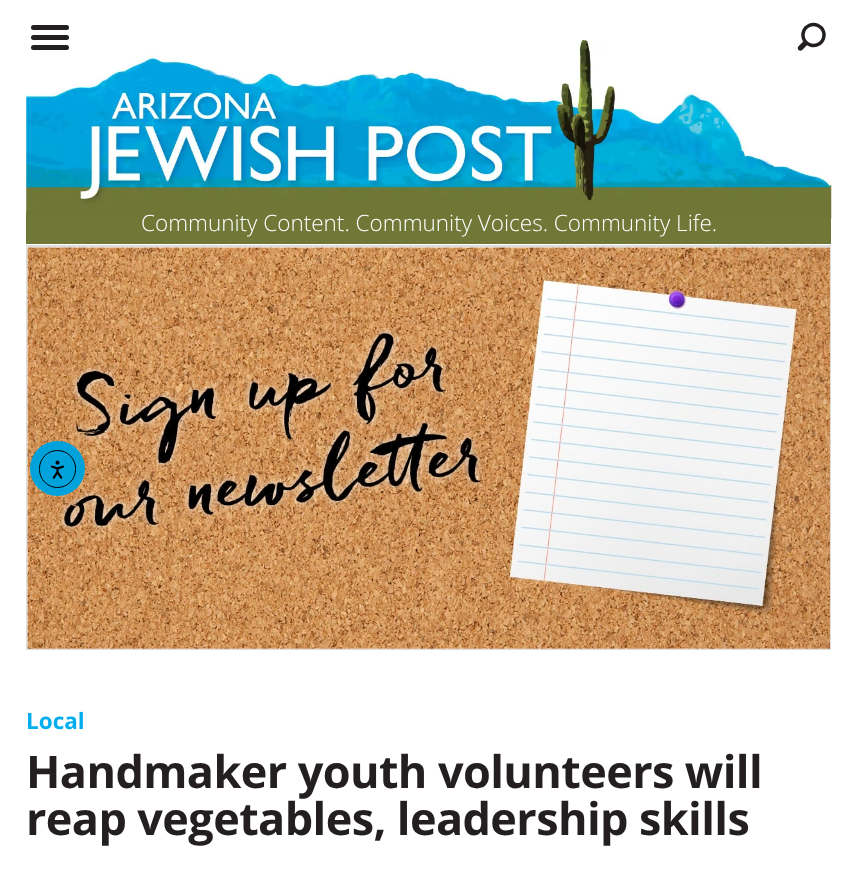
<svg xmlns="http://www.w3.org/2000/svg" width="857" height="882">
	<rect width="100%" height="100%" fill="#FFFFFF" />
	<rect x="31" y="25" width="38" height="5" rx="2.5" fill="#231F20" />
	<rect x="31" y="35" width="38" height="5" rx="2.5" fill="#231F20" />
	<rect x="26" y="211" width="805" height="33" fill="#707837" />
	<image x="26" y="40" width="806" height="179" href="assets/img1.png" />
	<rect x="31" y="45" width="38" height="5" rx="2.5" fill="#231F20" />
	<rect x="26" y="245" width="805" height="1" fill="#DDDDDD" />
	<text x="797" y="49" font-family="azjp" font-size="28" fill="#231F20">+</text>
	<text x="141" y="231" font-family="Open Sans" font-size="22.5" font-weight="300" fill="#FFFFFF">Community Content. Community Voices. Community Life.</text>
	<rect x="26.5" y="246.5" width="804" height="403" fill="none" stroke="#DDDDDD" />
	<image x="27" y="247" width="803" height="402" href="assets/img2.png" />
	<text x="26" y="729" font-family="Open Sans" font-size="22.5" font-weight="700" fill="#00ADEE">Local</text>
	<g font-family="Open Sans" font-size="45" font-weight="700" letter-spacing="-0.6" fill="#231F20">
		<text x="26" y="788">Handmaker youth volunteers will</text>
		<text x="26" y="835">reap vegetables, leadership skills</text>
	</g>
	<circle cx="57.5" cy="468.5" r="27.5" fill="#00A2DC" />
	<rect x="39.5" y="450.5" width="36" height="37" rx="18" fill="none" stroke="#000000" />
	<image x="50" y="460" width="14" height="19" href="assets/img3.png" />
</svg>
